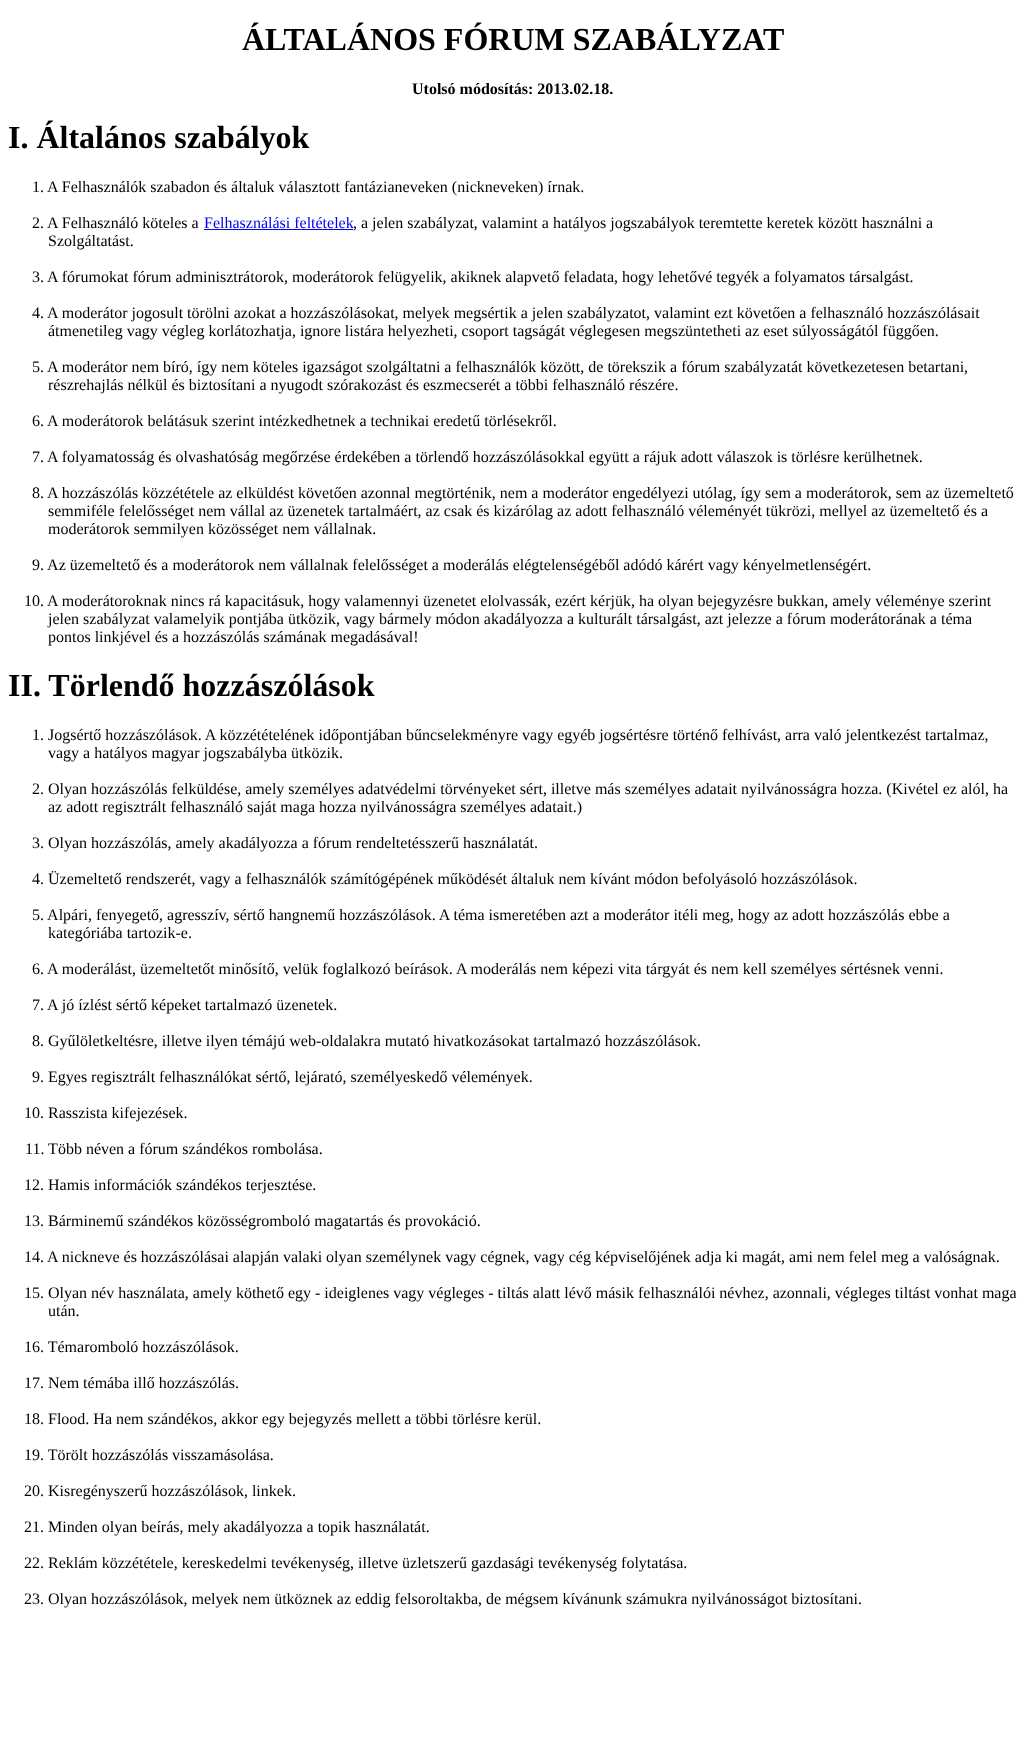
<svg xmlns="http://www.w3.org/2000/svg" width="1026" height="1752">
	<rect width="100%" height="100%" fill="#FFFFFF" />
	<text x="242" y="50" font-family="Liberation Serif" font-size="32" font-weight="700" fill="#000000">ÁLTALÁNOS FÓRUM SZABÁLYZAT</text>
	<text x="412" y="94" font-family="Liberation Serif" font-size="16" font-weight="700" fill="#000000">Utolsó módosítás: 2013.02.18.</text>
	<text x="8" y="148" font-family="Liberation Serif" font-size="32" font-weight="700" fill="#000000">I. Általános szabályok</text>
	<g font-family="Liberation Serif" font-size="16" fill="#000000">
		<text x="32" y="192">1. A Felhasználók szabadon és általuk választott fantázianeveken (nickneveken) írnak.</text>
		<text x="32" y="228">2. A Felhasználó köteles a</text>
	</g>
	<text x="204" y="228" font-family="Liberation Serif" font-size="16" fill="#0000EE">Felhasználási feltételek</text>
	<rect x="204" y="229" width="149" height="1" fill="#0000EE" />
	<g font-family="Liberation Serif" font-size="16" fill="#000000">
		<text x="353" y="228">, a jelen szabályzat, valamint a hatályos jogszabályok teremtette keretek között használni a</text>
		<text x="48" y="246">Szolgáltatást.</text>
		<text x="32" y="282">3. A fórumokat fórum adminisztrátorok, moderátorok felügyelik, akiknek alapvető feladata, hogy lehetővé tegyék a folyamatos társalgást.</text>
		<text x="32" y="318">4. A moderátor jogosult törölni azokat a hozzászólásokat, melyek megsértik a jelen szabályzatot, valamint ezt követően a felhasználó hozzászólásait</text>
		<text x="48" y="336">átmenetileg vagy végleg korlátozhatja, ignore listára helyezheti, csoport tagságát véglegesen megszüntetheti az eset súlyosságától függően.</text>
		<text x="32" y="372">5. A moderátor nem bíró, így nem köteles igazságot szolgáltatni a felhasználók között, de törekszik a fórum szabályzatát következetesen betartani,</text>
		<text x="48" y="390">részrehajlás nélkül és biztosítani a nyugodt szórakozást és eszmecserét a többi felhasználó részére.</text>
		<text x="32" y="426">6. A moderátorok belátásuk szerint intézkedhetnek a technikai eredetű törlésekről.</text>
		<text x="32" y="462">7. A folyamatosság és olvashatóság megőrzése érdekében a törlendő hozzászólásokkal együtt a rájuk adott válaszok is törlésre kerülhetnek.</text>
		<text x="32" y="498">8. A hozzászólás közzététele az elküldést követően azonnal megtörténik, nem a moderátor engedélyezi utólag, így sem a moderátorok, sem az üzemeltető</text>
		<text x="48" y="516">semmiféle felelősséget nem vállal az üzenetek tartalmáért, az csak és kizárólag az adott felhasználó véleményét tükrözi, mellyel az üzemeltető és a</text>
		<text x="48" y="534">moderátorok semmilyen közösséget nem vállalnak.</text>
		<text x="32" y="570">9. Az üzemeltető és a moderátorok nem vállalnak felelősséget a moderálás elégtelenségéből adódó kárért vagy kényelmetlenségért.</text>
		<text x="24" y="606">10. A moderátoroknak nincs rá kapacitásuk, hogy valamennyi üzenetet elolvassák, ezért kérjük, ha olyan bejegyzésre bukkan, amely véleménye szerint</text>
		<text x="48" y="624">jelen szabályzat valamelyik pontjába ütközik, vagy bármely módon akadályozza a kulturált társalgást, azt jelezze a fórum moderátorának a téma</text>
		<text x="48" y="642">pontos linkjével és a hozzászólás számának megadásával!</text>
	</g>
	<text x="8" y="696" font-family="Liberation Serif" font-size="32" font-weight="700" fill="#000000">II. Törlendő hozzászólások</text>
	<g font-family="Liberation Serif" font-size="16" fill="#000000">
		<text x="32" y="740">1. Jogsértő hozzászólások. A közzétételének időpontjában bűncselekményre vagy egyéb jogsértésre történő felhívást, arra való jelentkezést tartalmaz,</text>
		<text x="48" y="758">vagy a hatályos magyar jogszabályba ütközik.</text>
		<text x="32" y="794">2. Olyan hozzászólás felküldése, amely személyes adatvédelmi törvényeket sért, illetve más személyes adatait nyilvánosságra hozza. (Kivétel ez alól, ha</text>
		<text x="48" y="812">az adott regisztrált felhasználó saját maga hozza nyilvánosságra személyes adatait.)</text>
		<text x="32" y="848">3. Olyan hozzászólás, amely akadályozza a fórum rendeltetésszerű használatát.</text>
		<text x="32" y="884">4. Üzemeltető rendszerét, vagy a felhasználók számítógépének működését általuk nem kívánt módon befolyásoló hozzászólások.</text>
		<text x="32" y="920">5. Alpári, fenyegető, agresszív, sértő hangnemű hozzászólások. A téma ismeretében azt a moderátor itéli meg, hogy az adott hozzászólás ebbe a</text>
		<text x="48" y="938">kategóriába tartozik-e.</text>
		<text x="32" y="974">6. A moderálást, üzemeltetőt minősítő, velük foglalkozó beírások. A moderálás nem képezi vita tárgyát és nem kell személyes sértésnek venni.</text>
		<text x="32" y="1010">7. A jó ízlést sértő képeket tartalmazó üzenetek.</text>
		<text x="32" y="1046">8. Gyűlöletkeltésre, illetve ilyen témájú web-oldalakra mutató hivatkozásokat tartalmazó hozzászólások.</text>
		<text x="32" y="1082">9. Egyes regisztrált felhasználókat sértő, lejárató, személyeskedő vélemények.</text>
		<text x="24" y="1118">10. Rasszista kifejezések.</text>
		<text x="25" y="1154">11. Több néven a fórum szándékos rombolása.</text>
		<text x="24" y="1190">12. Hamis információk szándékos terjesztése.</text>
		<text x="24" y="1226">13. Bárminemű szándékos közösségromboló magatartás és provokáció.</text>
		<text x="24" y="1262">14. A nickneve és hozzászólásai alapján valaki olyan személynek vagy cégnek, vagy cég képviselőjének adja ki magát, ami nem felel meg a valóságnak.</text>
		<text x="24" y="1298">15. Olyan név használata, amely köthető egy - ideiglenes vagy végleges - tiltás alatt lévő másik felhasználói névhez, azonnali, végleges tiltást vonhat maga</text>
		<text x="48" y="1316">után.</text>
		<text x="24" y="1352">16. Témaromboló hozzászólások.</text>
		<text x="24" y="1388">17. Nem témába illő hozzászólás.</text>
		<text x="24" y="1424">18. Flood. Ha nem szándékos, akkor egy bejegyzés mellett a többi törlésre kerül.</text>
		<text x="24" y="1460">19. Törölt hozzászólás visszamásolása.</text>
		<text x="24" y="1496">20. Kisregényszerű hozzászólások, linkek.</text>
		<text x="24" y="1532">21. Minden olyan beírás, mely akadályozza a topik használatát.</text>
		<text x="24" y="1568">22. Reklám közzététele, kereskedelmi tevékenység, illetve üzletszerű gazdasági tevékenység folytatása.</text>
		<text x="24" y="1604">23. Olyan hozzászólások, melyek nem ütköznek az eddig felsoroltakba, de mégsem kívánunk számukra nyilvánosságot biztosítani.</text>
	</g>
</svg>
